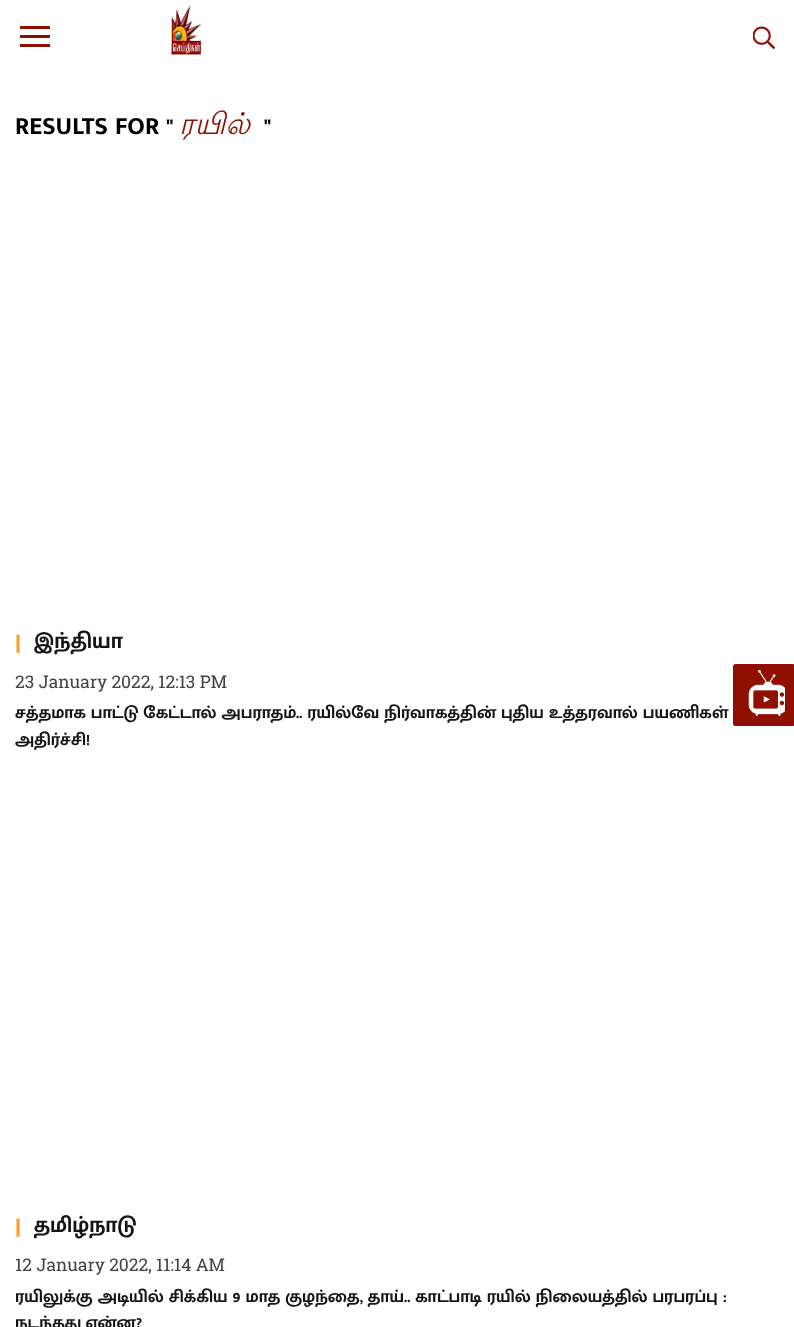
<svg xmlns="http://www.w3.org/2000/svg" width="794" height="1327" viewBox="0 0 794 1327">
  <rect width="100%" height="100%" fill="rgb(255,255,255)"/>
  <rect x="20" y="26" width="30" height="3" fill="rgb(143,15,1)"/>
  <rect x="20" y="35" width="30" height="3" fill="rgb(143,15,1)"/>
  <rect x="20" y="44" width="30" height="3" fill="rgb(143,15,1)"/>
  <image x="171" y="5" width="30" height="50" href="pic1.png"/>
  <image x="753" y="26" width="22" height="23" href="pic2.png"/>
  <text x="15" y="134" font-family="Mukta Malar" font-size="25" font-weight="bold" fill="rgb(0,0,0)">RESULTS FOR "</text>
  <text x="179" y="134" font-family="Lohit Tamil" font-size="30" font-style="italic" fill="rgb(143,15,1)">ரயில்</text>
  <text x="264" y="134" font-family="Mukta Malar" font-size="25" font-weight="bold" fill="rgb(0,0,0)">"</text>
  <text x="15" y="650" font-family="Mukta Malar" font-size="25" font-weight="bold" fill="rgb(250,160,47)">|</text>
  <text x="34" y="648" font-family="Mukta Malar" font-size="22.5" font-weight="bold" fill="rgb(20,20,20)">இந்தியா</text>
  <text x="15" y="688" font-family="Roboto Slab" font-size="17.5" fill="rgb(67,67,67)">23 January 2022, 12:13 PM</text>
  <g font-family="Mukta Malar" font-size="17.5" font-weight="bold" fill="rgb(20,20,20)">
    <text>
      <tspan x="15" y="718">சத்தமாக பாட்டு கேட்டால் அபராதம்.. ரயில்வே நிர்வாகத்தின் புதிய உத்தரவால் பயணிகள்</tspan>
      <tspan x="15" y="745">அதிர்ச்சி!</tspan>
    </text>
  </g>
  <text x="15" y="1234" font-family="Mukta Malar" font-size="25" font-weight="bold" fill="rgb(250,160,47)">|</text>
  <text x="34" y="1232" font-family="Mukta Malar" font-size="22.5" font-weight="bold" fill="rgb(20,20,20)">தமிழ்நாடு</text>
  <text x="15" y="1271" font-family="Roboto Slab" font-size="17.5" fill="rgb(67,67,67)">12 January 2022, 11:14 AM</text>
  <g font-family="Mukta Malar" font-size="17.5" font-weight="bold" fill="rgb(20,20,20)">
    <text>
      <tspan x="15" y="1302">ரயிலுக்கு அடியில் சிக்கிய 9 மாத குழந்தை, தாய்.. காட்பாடி ரயில் நிலையத்தில் பரபரப்பு :</tspan>
      <tspan x="15" y="1328" word-spacing="-1">நடந்தது என்ன?</tspan>
    </text>
  </g>
  <rect x="733" y="664" width="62" height="62" rx="2.5" fill="rgb(143,15,1)"/>
  <image x="748" y="670" width="37" height="47" href="pic3.png"/>
</svg>
